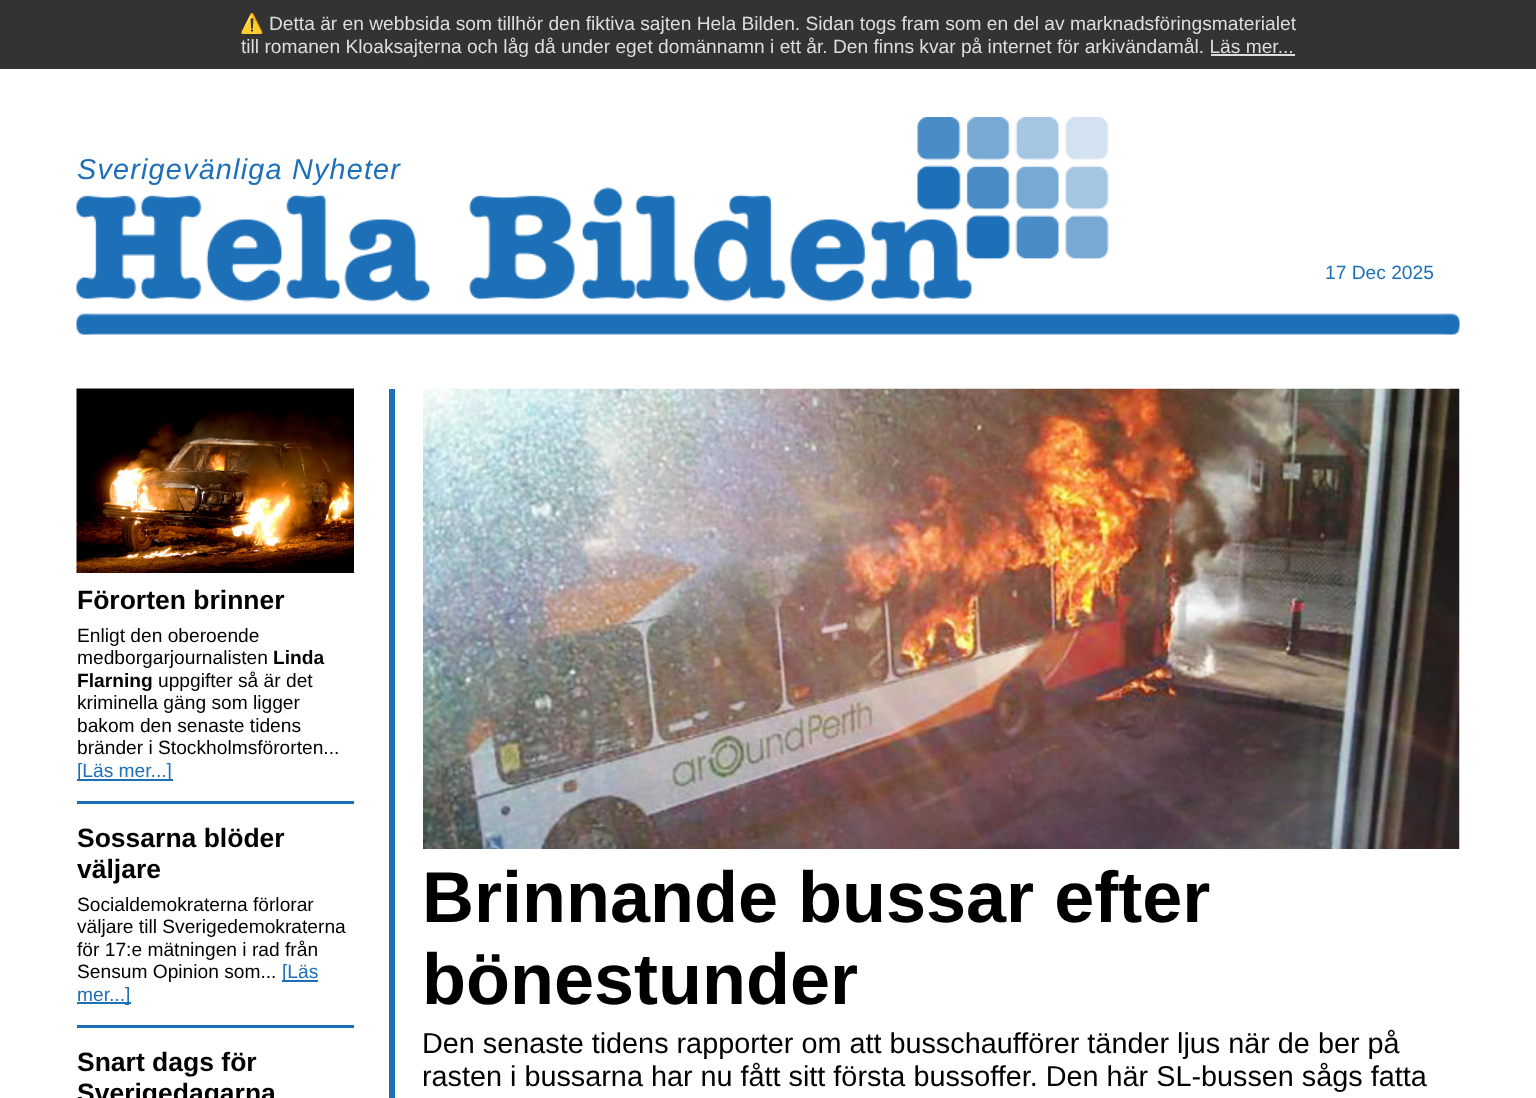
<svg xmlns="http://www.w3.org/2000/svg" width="1536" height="1098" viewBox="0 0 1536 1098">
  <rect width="100%" height="100%" fill="rgb(255,255,255)"/>
  <rect x="0" y="0" width="1536" height="69" fill="rgb(51,51,51)"/>
  <text x="240" y="30" font-family="Noto Color Emoji" font-size="19.2" fill="rgb(221,221,221)">⚠️</text>
  <g font-family="Liberation Sans" font-size="19.2" fill="rgb(221,221,221)">
    <text x="269" y="30">Detta är en webbsida som tillhör den fiktiva sajten Hela Bilden. Sidan togs fram som en del av marknadsföringsmaterialet</text>
    <text x="241" y="53">till romanen Kloaksajterna och låg då under eget domännamn i ett år. Den finns kvar på internet för arkivändamål. Läs mer...</text>
  </g>
  <rect x="1211" y="54" width="84" height="2" fill="rgb(221,221,221)"/>
  <image x="76" y="117" width="1384" height="218" href="pic1.png"/>
  <text x="77" y="179" font-family="Liberation Sans" font-size="28.8" font-style="italic" letter-spacing="1.2" fill="rgb(29,112,184)">Sverigevänliga Nyheter</text>
  <text x="1325" y="279" font-family="Liberation Sans" font-size="19.2" fill="rgb(29,112,184)">17 Dec 2025</text>
  <rect x="77" y="801" width="277" height="3" fill="rgb(29,112,184)"/>
  <image x="76" y="388" width="278" height="185" href="pic2.png"/>
  <text x="77" y="609" font-family="Liberation Sans" font-size="26.5" font-weight="bold" fill="rgb(0,0,0)">Förorten brinner</text>
  <g font-family="Liberation Sans" font-size="19.2" fill="rgb(0,0,0)">
    <text>
      <tspan x="77" y="642">Enligt den oberoende</tspan>
      <tspan x="77" y="664">medborgarjournalisten</tspan>
    </text>
  </g>
  <g font-family="Liberation Sans" font-size="19.2" font-weight="bold" fill="rgb(0,0,0)">
    <text x="273" y="664">Linda</text>
    <text x="77" y="687">Flarning</text>
  </g>
  <g font-family="Liberation Sans" font-size="19.2" fill="rgb(0,0,0)">
    <text x="158" y="687">uppgifter så är det</text>
    <text>
      <tspan x="77" y="709">kriminella gäng som ligger</tspan>
      <tspan x="77" y="732">bakom den senaste tidens</tspan>
      <tspan x="77" y="754">bränder i Stockholmsförorten...</tspan>
    </text>
  </g>
  <rect x="77" y="779" width="96" height="2" fill="rgb(29,112,184)"/>
  <text x="77" y="777" font-family="Liberation Sans" font-size="19.2" fill="rgb(29,112,184)">[Läs mer...]</text>
  <rect x="77" y="1025" width="277" height="3" fill="rgb(29,112,184)"/>
  <g font-family="Liberation Sans" font-size="26.5" font-weight="bold" fill="rgb(0,0,0)">
    <text>
      <tspan x="77" y="847">Sossarna blöder</tspan>
      <tspan x="77" y="878">väljare</tspan>
    </text>
  </g>
  <g font-family="Liberation Sans" font-size="19.2" fill="rgb(0,0,0)">
    <text>
      <tspan x="77" y="911">Socialdemokraterna förlorar</tspan>
      <tspan x="77" y="933">väljare till Sverigedemokraterna</tspan>
      <tspan x="77" y="956">för 17:e mätningen i rad från</tspan>
      <tspan x="77" y="978">Sensum Opinion som...</tspan>
    </text>
  </g>
  <rect x="282" y="980" width="36" height="2" fill="rgb(29,112,184)"/>
  <text x="282" y="978" font-family="Liberation Sans" font-size="19.2" fill="rgb(29,112,184)">[Läs</text>
  <rect x="77" y="1002" width="54" height="2" fill="rgb(29,112,184)"/>
  <text x="77" y="1001" font-family="Liberation Sans" font-size="19.2" fill="rgb(29,112,184)">mer...]</text>
  <g font-family="Liberation Sans" font-size="26.5" font-weight="bold" fill="rgb(0,0,0)">
    <text>
      <tspan x="77" y="1071">Snart dags för</tspan>
      <tspan x="77" y="1102">Sverigedagarna</tspan>
    </text>
  </g>
  <rect x="389" y="389" width="6" height="709" fill="rgb(29,112,184)"/>
  <image x="423" y="388" width="1037" height="461" href="pic3.png"/>
  <g font-family="Liberation Sans" font-size="72" font-weight="bold" fill="rgb(0,0,0)">
    <text>
      <tspan x="422" y="922">Brinnande bussar efter</tspan>
      <tspan x="422" y="1004">bönestunder</tspan>
    </text>
  </g>
  <g font-family="Liberation Sans" font-size="28.8" fill="rgb(0,0,0)">
    <text>
      <tspan x="422" y="1053">Den senaste tidens rapporter om att busschaufförer tänder ljus när de ber på</tspan>
      <tspan x="422" y="1086">rasten i bussarna har nu fått sitt första bussoffer. Den här SL-bussen sågs fatta</tspan>
    </text>
  </g>
</svg>
